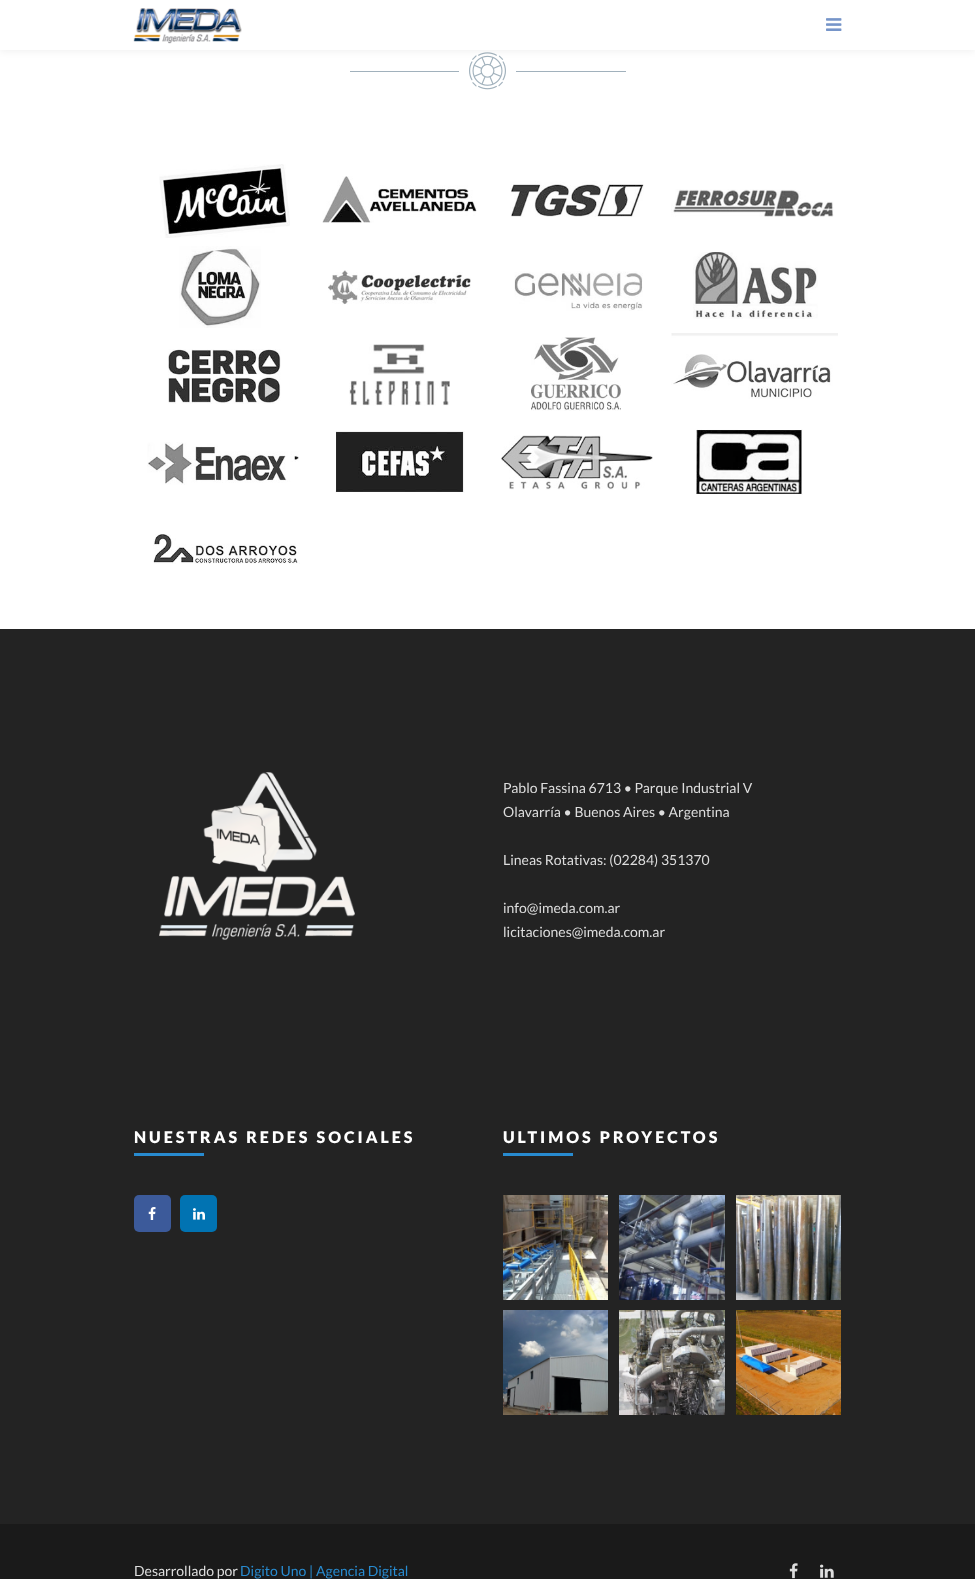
<svg xmlns="http://www.w3.org/2000/svg" width="975" height="1579" viewBox="0 0 975 1579">
  <rect width="100%" height="100%" fill="rgb(255,255,255)"/>
  <image x="469" y="52" width="37" height="38" href="pic3.png"/>
  <rect x="0" y="2" width="975" height="50" fill="rgba(0,0,0,0.05)" filter="blur(3px)"/>
  <rect x="0" y="0" width="975" height="50" fill="rgb(255,255,255)"/>
  <image x="133" y="8" width="109" height="36" href="pic1.png"/>
  <image x="826" y="18" width="16" height="13" href="pic2.png"/>
  <rect x="350" y="71" width="109" height="1" fill="rgb(161,177,188)"/>
  <rect x="516" y="71" width="110" height="1" fill="rgb(161,177,188)"/>
  <image x="159" y="164" width="131" height="74" href="pic4.png"/>
  <image x="322" y="176" width="155" height="47" href="pic5.png"/>
  <image x="510" y="181" width="134" height="36" href="pic6.png"/>
  <image x="671" y="189" width="163" height="28" href="pic7.png"/>
  <image x="179" y="246" width="82" height="82" href="pic8.png"/>
  <image x="328" y="270" width="143" height="35" href="pic9.png"/>
  <image x="514" y="271" width="129" height="40" href="pic10.png"/>
  <image x="693" y="252" width="125" height="67" href="pic11.png"/>
  <image x="168" y="349" width="113" height="55" href="pic12.png"/>
  <image x="349" y="344" width="101" height="62" href="pic13.png"/>
  <image x="531" y="337" width="90" height="74" href="pic14.png"/>
  <image x="671" y="333" width="167" height="66" href="pic15.png"/>
  <image x="147" y="442" width="152" height="43" href="pic16.png"/>
  <image x="335" y="431" width="130" height="62" href="pic17.png"/>
  <image x="501" y="435" width="152" height="55" href="pic18.png"/>
  <image x="696" y="429" width="107" height="66" href="pic19.png"/>
  <image x="153" y="534" width="147" height="30" href="pic20.png"/>
  <rect x="0" y="629" width="975" height="895" fill="rgb(35,35,35)"/>
  <image x="159" y="772" width="196" height="168" href="pic21.png"/>
  <g font-family="Lato" font-size="14" fill="rgb(221,221,221)">
    <text>
      <tspan x="503" y="793">Pablo Fassina 6713 • Parque Industrial V</tspan>
      <tspan x="503" y="817">Olavarría • Buenos Aires • Argentina</tspan>
    </text>
    <text x="503" y="865">Lineas Rotativas: (02284) 351370</text>
    <text>
      <tspan x="503" y="913">info@imeda.com.ar</tspan>
      <tspan x="503" y="937">licitaciones@imeda.com.ar</tspan>
    </text>
  </g>
  <text x="134" y="1143" font-family="Lato" font-size="16" font-weight="900" letter-spacing="3" fill="rgb(255,255,255)">NUESTRAS REDES SOCIALES</text>
  <rect x="134" y="1153" width="70" height="3" fill="rgb(40,139,208)"/>
  <rect x="134" y="1195" width="37" height="37" rx="5" fill="rgb(60,90,154)"/>
  <image x="148" y="1207" width="8" height="13" href="pic22.png"/>
  <rect x="180" y="1195" width="37" height="37" rx="5" fill="rgb(1,115,178)"/>
  <image x="193" y="1208" width="12" height="12" href="pic23.png"/>
  <text x="503" y="1143" font-family="Lato" font-size="16" font-weight="900" letter-spacing="3" fill="rgb(255,255,255)">ULTIMOS PROYECTOS</text>
  <rect x="503" y="1153" width="70" height="3" fill="rgb(40,139,208)"/>
  <image x="503" y="1195" width="105" height="105" href="pic24.png"/>
  <text x="545" y="1260" font-family="Lato" font-size="34" fill="rgb(71,88,109)">+</text>
  <image x="619" y="1195" width="106" height="105" href="pic25.png"/>
  <text x="662" y="1260" font-family="Lato" font-size="34" fill="rgb(105,115,131)">+</text>
  <image x="736" y="1195" width="105" height="105" href="pic26.png"/>
  <image x="503" y="1310" width="105" height="105" href="pic27.png"/>
  <image x="619" y="1310" width="106" height="105" href="pic28.png"/>
  <text x="662" y="1375" font-family="Lato" font-size="34" fill="rgb(132,129,125)">+</text>
  <image x="736" y="1310" width="105" height="105" href="pic29.png"/>
  <text x="779" y="1375" font-family="Lato" font-size="34" fill="rgb(211,176,133)">+</text>
  <rect x="0" y="1524" width="975" height="55" fill="rgb(26,26,26)"/>
  <text x="134" y="1576" font-family="Lato" font-size="14" fill="rgb(221,221,221)">Desarrollado por</text>
  <text x="240" y="1576" font-family="Lato" font-size="14" fill="rgb(40,139,208)">Digito Uno | Agencia Digital</text>
  <image x="789" y="1563" width="9" height="16" href="pic30.png"/>
  <image x="820" y="1564" width="14" height="14" href="pic31.png"/>
</svg>
